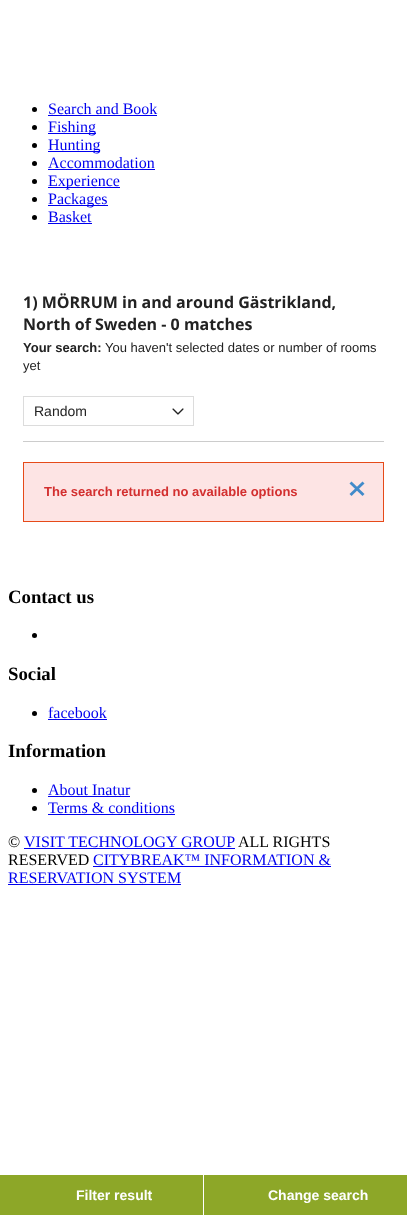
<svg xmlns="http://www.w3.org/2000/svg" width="407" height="1215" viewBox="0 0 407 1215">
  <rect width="100%" height="100%" fill="rgb(255,255,255)"/>
  <circle cx="34.5" cy="109.5" r="2.5" fill="rgb(0,0,0)"/>
  <text x="48" y="114" font-family="Liberation Serif" font-size="16" fill="rgb(0,0,238)">Search and Book</text>
  <rect x="48" y="115" width="109" height="1" fill="rgb(0,0,238)"/>
  <circle cx="34.5" cy="127.5" r="2.5" fill="rgb(0,0,0)"/>
  <rect x="48" y="133" width="48" height="1" fill="rgb(0,0,238)"/>
  <text x="48" y="132" font-family="Liberation Serif" font-size="16" fill="rgb(0,0,238)">Fishing</text>
  <circle cx="34.5" cy="145.5" r="2.5" fill="rgb(0,0,0)"/>
  <rect x="48" y="151" width="52" height="1" fill="rgb(0,0,238)"/>
  <text x="48" y="150" font-family="Liberation Serif" font-size="16" fill="rgb(0,0,238)">Hunting</text>
  <circle cx="34.5" cy="163.5" r="2.5" fill="rgb(0,0,0)"/>
  <text x="48" y="168" font-family="Liberation Serif" font-size="16" fill="rgb(0,0,238)">Accommodation</text>
  <rect x="48" y="169" width="107" height="1" fill="rgb(0,0,238)"/>
  <circle cx="34.5" cy="181.5" r="2.5" fill="rgb(0,0,0)"/>
  <rect x="48" y="187" width="72" height="1" fill="rgb(0,0,238)"/>
  <text x="48" y="186" font-family="Liberation Serif" font-size="16" fill="rgb(0,0,238)">Experience</text>
  <circle cx="34.5" cy="199.5" r="2.5" fill="rgb(0,0,0)"/>
  <rect x="48" y="205" width="60" height="1" fill="rgb(0,0,238)"/>
  <text x="48" y="204" font-family="Liberation Serif" font-size="16" fill="rgb(0,0,238)">Packages</text>
  <circle cx="34.5" cy="217.5" r="2.5" fill="rgb(0,0,0)"/>
  <text x="48" y="222" font-family="Liberation Serif" font-size="16" fill="rgb(0,0,238)">Basket</text>
  <rect x="48" y="223" width="44" height="1" fill="rgb(0,0,238)"/>
  <g font-family="Open Sans" font-size="16" font-weight="bold" fill="rgb(34,34,34)">
    <text>
      <tspan x="23" y="308">1) MÖRRUM in and around Gästrikland,</tspan>
      <tspan x="23" y="330">North of Sweden - 0 matches</tspan>
    </text>
  </g>
  <text x="23" y="352" font-family="Liberation Sans" font-size="13" font-weight="bold" fill="rgb(34,34,34)">Your search:</text>
  <g font-family="Liberation Sans" font-size="13" fill="rgb(34,34,34)">
    <text x="105" y="352">You haven't selected dates or number of rooms</text>
    <text x="23" y="370">yet</text>
  </g>
  <rect x="23" y="441" width="361" height="1" fill="rgb(204,204,204)"/>
  <image x="172" y="408" width="12" height="7" href="pic1.png"/>
  <rect x="23.5" y="396.5" width="170" height="29" fill="none" stroke="rgb(220,220,220)"/>
  <text x="34" y="416" font-family="Liberation Sans" font-size="14" fill="rgb(34,34,34)">Random</text>
  <rect x="23.5" y="462.5" width="360" height="59" fill="rgb(253,228,228)" stroke="rgb(230,74,25)"/>
  <text x="44" y="496" font-family="Liberation Sans" font-size="13" font-weight="bold" fill="rgb(211,47,47)">The search returned no available options</text>
  <path d="M351.5 481.5L364.5 494L362.5 496L349.5 483.5Z" fill="rgb(66,139,202)"/>
  <path d="M349.5 494L362.5 481.5L364.5 483.5L351.5 496Z" fill="rgb(66,139,202)"/>
  <rect x="0" y="1175" width="203" height="40" fill="rgb(141,167,40)"/>
  <text x="76" y="1200" font-family="Liberation Sans" font-size="14" font-weight="bold" fill="rgb(255,255,255)">Filter result</text>
  <rect x="204" y="1175" width="203" height="40" fill="rgb(141,167,40)"/>
  <text x="268" y="1200" font-family="Liberation Sans" font-size="14" font-weight="bold" fill="rgb(255,255,255)">Change search</text>
  <text x="8" y="603" font-family="Liberation Serif" font-size="18.75" font-weight="bold" fill="rgb(0,0,0)">Contact us</text>
  <circle cx="34.5" cy="635.5" r="2.5" fill="rgb(0,0,0)"/>
  <text x="8" y="680" font-family="Liberation Serif" font-size="18.75" font-weight="bold" fill="rgb(0,0,0)">Social</text>
  <circle cx="34.5" cy="713.5" r="2.5" fill="rgb(0,0,0)"/>
  <text x="48" y="718" font-family="Liberation Serif" font-size="16" fill="rgb(0,0,238)">facebook</text>
  <rect x="48" y="719" width="59" height="1" fill="rgb(0,0,238)"/>
  <text x="8" y="757" font-family="Liberation Serif" font-size="18.75" font-weight="bold" fill="rgb(0,0,0)">Information</text>
  <circle cx="34.5" cy="790.5" r="2.5" fill="rgb(0,0,0)"/>
  <text x="48" y="795" font-family="Liberation Serif" font-size="16" fill="rgb(0,0,238)">About Inatur</text>
  <rect x="48" y="796" width="82" height="1" fill="rgb(0,0,238)"/>
  <circle cx="34.5" cy="808.5" r="2.5" fill="rgb(0,0,0)"/>
  <text x="48" y="813" font-family="Liberation Serif" font-size="16" fill="rgb(0,0,238)">Terms &amp; conditions</text>
  <rect x="48" y="814" width="127" height="1" fill="rgb(0,0,238)"/>
  <text x="8" y="847" font-family="Liberation Serif" font-size="16" fill="rgb(0,0,0)">©</text>
  <text x="24" y="847" font-family="Liberation Serif" font-size="16" fill="rgb(0,0,238)">VISIT TECHNOLOGY GROUP</text>
  <rect x="24" y="848" width="211" height="1" fill="rgb(0,0,238)"/>
  <g font-family="Liberation Serif" font-size="16" fill="rgb(0,0,0)">
    <text x="238" y="847">ALL RIGHTS</text>
    <text x="8" y="865">RESERVED</text>
  </g>
  <text x="93" y="865" font-family="Liberation Serif" font-size="16" fill="rgb(0,0,238)">CITYBREAK™ INFORMATION &amp;</text>
  <rect x="93" y="866" width="238" height="1" fill="rgb(0,0,238)"/>
  <text x="8" y="883" font-family="Liberation Serif" font-size="16" fill="rgb(0,0,238)">RESERVATION SYSTEM</text>
  <rect x="8" y="884" width="173" height="1" fill="rgb(0,0,238)"/>
</svg>
